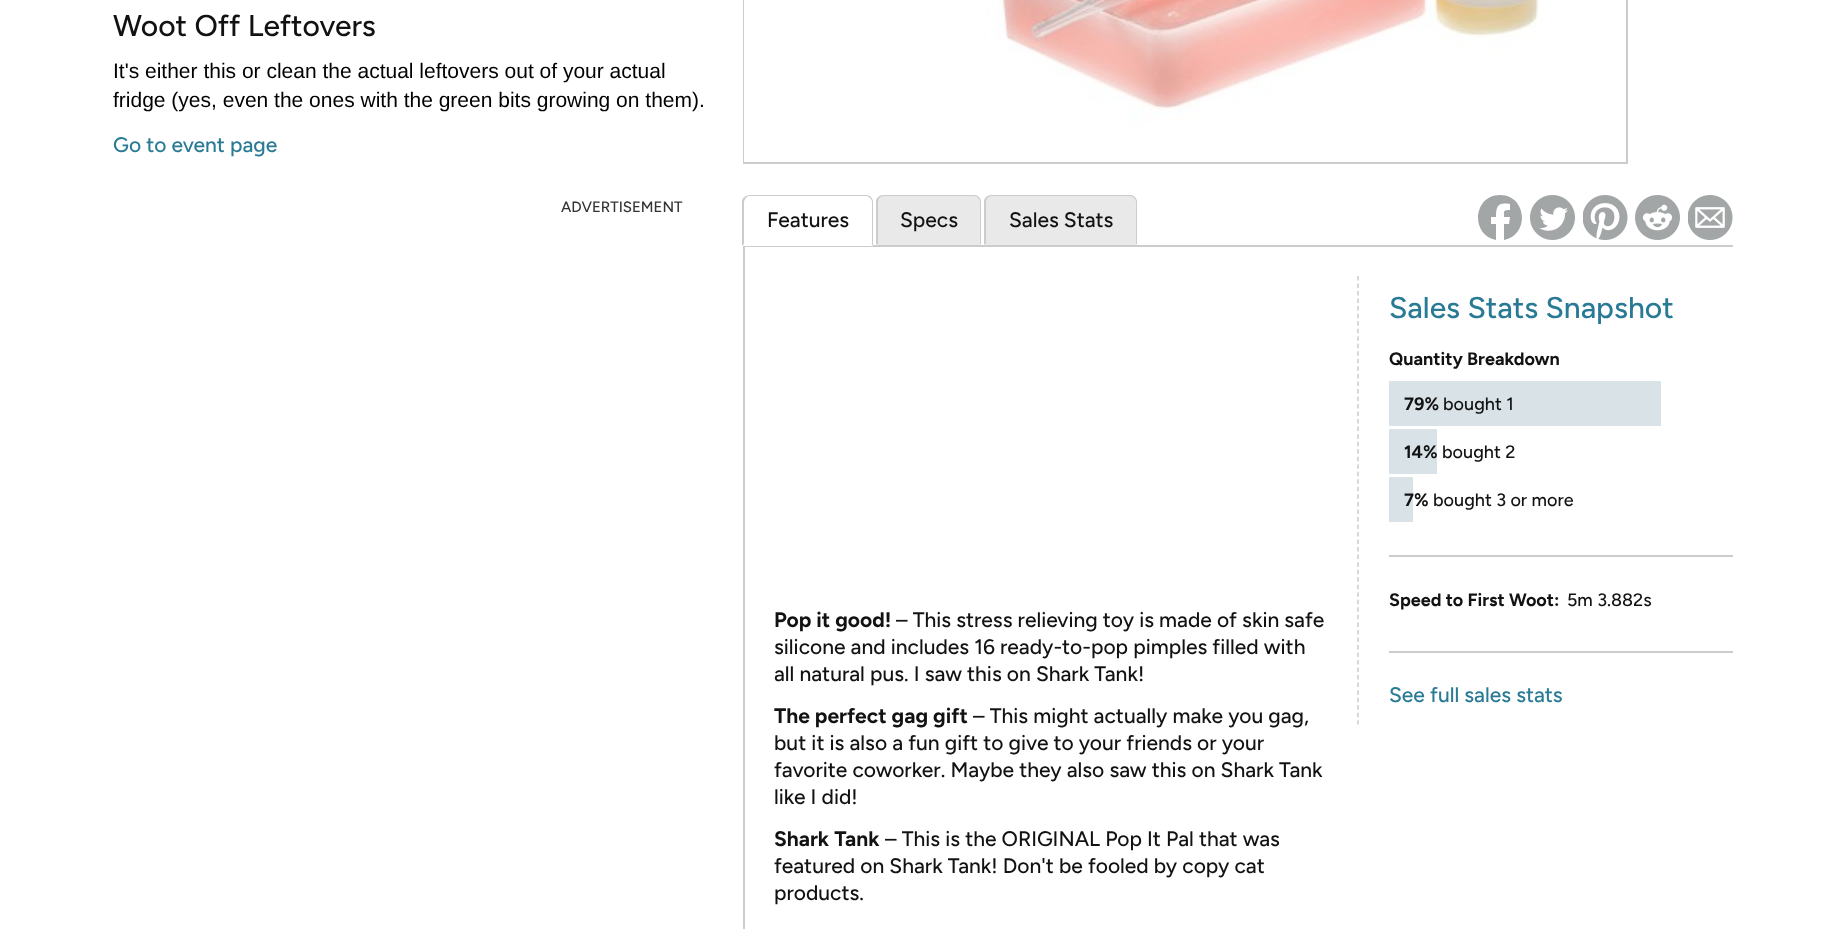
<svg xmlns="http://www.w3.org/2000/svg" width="1844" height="929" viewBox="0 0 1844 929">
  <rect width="100%" height="100%" fill="rgb(255,255,255)"/>
  <text x="113" y="36" font-family="Figtree" font-size="30" font-weight="500" fill="rgb(18,18,18)">Woot Off Leftovers</text>
  <g font-family="Liberation Sans" font-size="21" fill="rgb(0,0,0)">
    <text>
      <tspan x="113" y="78">It's either this or clean the actual leftovers out of your actual</tspan>
      <tspan x="113" y="107">fridge (yes, even the ones with the green bits growing on them).</tspan>
    </text>
  </g>
  <text x="113" y="152" font-family="Figtree" font-size="21" font-weight="500" fill="rgb(41,122,148)">Go to event page</text>
  <text x="561" y="212" font-family="Figtree" font-size="15" font-weight="500" fill="rgb(51,51,51)">ADVERTISEMENT</text>
  <rect x="744" y="-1" width="883" height="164" fill="none" stroke="rgb(204,204,204)" stroke-width="2"/>
  <image x="744" y="0" width="796" height="162" href="pic1.png"/>
  <path d="M1500 195C1473 195 1470 235 1496 240V224H1491V217H1496C1496 206 1498 202 1510 204V210C1503 210 1504 211 1504 217H1510L1509 224H1504V240C1530 235 1527 195 1500 195" fill="rgb(162,166,166)"/>
  <image x="1530" y="195" width="45" height="45" href="pic2.png"/>
  <image x="1583" y="195" width="45" height="45" href="pic3.png"/>
  <image x="1635" y="195" width="45" height="45" href="pic4.png"/>
  <image x="1688" y="195" width="45" height="45" href="pic5.png"/>
  <rect x="743" y="246" width="2" height="683" fill="rgb(204,204,204)"/>
  <rect x="743" y="245" width="990" height="2" fill="rgb(204,204,204)"/>
  <path d="M751 195H865C869.5 195 873 198.5 873 203V246H743V203C743 198.5 746.5 195 751 195Z" fill="rgb(255,255,255)"/>
  <path d="M750 195C748 195 746 196 744 197L746 198C747 197 748 196 749 196H867L870 198L871 197C870 196 868 195 866 195Z" fill="rgb(204,204,204)"/>
  <path d="M873 246V202C873 200 872 198 871 197L870 198C871 199 872 200 872 202V244H871Z" fill="rgb(204,204,204)"/>
  <path d="M873 246L871 244H744L742 246Z" fill="rgb(255,255,255)"/>
  <path d="M742 246V200L744 197L746 198C745 199 744 201 744 202V244Z" fill="rgb(204,204,204)"/>
  <text x="767" y="227" font-family="Figtree" font-size="21" font-weight="500" fill="rgb(18,18,18)">Features</text>
  <path d="M884 195H973C977.5 195 981 198.5 981 203V245H876V203C876 198.5 879.5 195 884 195Z" fill="rgb(233,233,233)"/>
  <path d="M884 195H974C978 195 981 198 981 202V244H876V202C876 198 879 195 884 195ZM884 196H974C977 196 980 199 980 202V244H878V202C878 199 880 196 884 196Z" fill="rgb(204,204,204)" fill-rule="evenodd"/>
  <text x="900" y="227" font-family="Figtree" font-size="21" font-weight="500" fill="rgb(18,18,18)">Specs</text>
  <path d="M992 195H1129C1133.5 195 1137 198.5 1137 203V245H984V203C984 198.5 987.5 195 992 195Z" fill="rgb(233,233,233)"/>
  <path d="M992 195H1130C1134 195 1137 198 1137 202V244H984V202C984 198 987 195 992 195ZM992 196H1130C1133 196 1136 199 1136 202V244H986V202C986 199 988 196 992 196Z" fill="rgb(204,204,204)" fill-rule="evenodd"/>
  <text x="1009" y="227" font-family="Figtree" font-size="21" font-weight="500" fill="rgb(18,18,18)">Sales Stats</text>
  <path d="M1358 276V724.5" fill="none" stroke="rgb(204,204,204)" stroke-width="1.5" stroke-dasharray="4.5 3.03"/>
  <text x="1389" y="318" font-family="Figtree" font-size="30" font-weight="500" fill="rgb(41,122,148)">Sales Stats Snapshot</text>
  <rect x="1389" y="555" width="344" height="2" fill="rgb(204,204,204)"/>
  <text x="1389" y="365" font-family="Figtree" font-size="18" font-weight="bold" fill="rgb(18,18,18)">Quantity Breakdown</text>
  <rect x="1389" y="381" width="272" height="45" fill="rgb(217,227,231)"/>
  <text x="1404" y="410" font-family="Figtree" font-size="18" font-weight="bold" fill="rgb(18,18,18)">79%</text>
  <text x="1443" y="410" font-family="Figtree" font-size="18" font-weight="500" fill="rgb(18,18,18)">bought 1</text>
  <rect x="1389" y="429" width="48" height="45" fill="rgb(217,227,231)"/>
  <text x="1404" y="458" font-family="Figtree" font-size="18" font-weight="bold" fill="rgb(18,18,18)">14%</text>
  <text x="1442" y="458" font-family="Figtree" font-size="18" font-weight="500" fill="rgb(18,18,18)">bought 2</text>
  <rect x="1389" y="477" width="24" height="45" fill="rgb(217,227,231)"/>
  <text x="1404" y="506" font-family="Figtree" font-size="18" font-weight="bold" fill="rgb(18,18,18)">7%</text>
  <text x="1433" y="506" font-family="Figtree" font-size="18" font-weight="500" fill="rgb(18,18,18)">bought 3 or more</text>
  <rect x="1389" y="651" width="344" height="2" fill="rgb(204,204,204)"/>
  <text x="1389" y="606" font-family="Figtree" font-size="18" font-weight="bold" fill="rgb(18,18,18)">Speed to First Woot:</text>
  <text x="1567" y="606" font-family="Figtree" font-size="18" font-weight="500" fill="rgb(18,18,18)">5m 3.882s</text>
  <text x="1389" y="702" font-family="Figtree" font-size="21" font-weight="500" fill="rgb(41,122,148)">See full sales stats</text>
  <text x="774" y="627" font-family="Figtree" font-size="21" font-weight="bold" fill="rgb(18,18,18)">Pop it good!</text>
  <g font-family="Figtree" font-size="21" font-weight="500" fill="rgb(18,18,18)">
    <text x="896" y="627">– This stress relieving toy is made of skin safe</text>
    <text>
      <tspan x="774" y="654">silicone and includes 16 ready-to-pop pimples filled with</tspan>
      <tspan x="774" y="681">all natural pus. I saw this on Shark Tank!</tspan>
    </text>
  </g>
  <text x="774" y="723" font-family="Figtree" font-size="21" font-weight="bold" fill="rgb(18,18,18)">The perfect gag gift</text>
  <g font-family="Figtree" font-size="21" font-weight="500" fill="rgb(18,18,18)">
    <text x="973" y="723">– This might actually make you gag,</text>
    <text>
      <tspan x="774" y="750">but it is also a fun gift to give to your friends or your</tspan>
      <tspan x="774" y="777">favorite coworker. Maybe they also saw this on Shark Tank</tspan>
      <tspan x="774" y="804">like I did!</tspan>
    </text>
  </g>
  <text x="774" y="846" font-family="Figtree" font-size="21" font-weight="bold" fill="rgb(18,18,18)">Shark Tank</text>
  <g font-family="Figtree" font-size="21" font-weight="500" fill="rgb(18,18,18)">
    <text x="885" y="846">– This is the ORIGINAL Pop It Pal that was</text>
    <text>
      <tspan x="774" y="873">featured on Shark Tank! Don't be fooled by copy cat</tspan>
      <tspan x="774" y="900">products.</tspan>
    </text>
  </g>
</svg>
